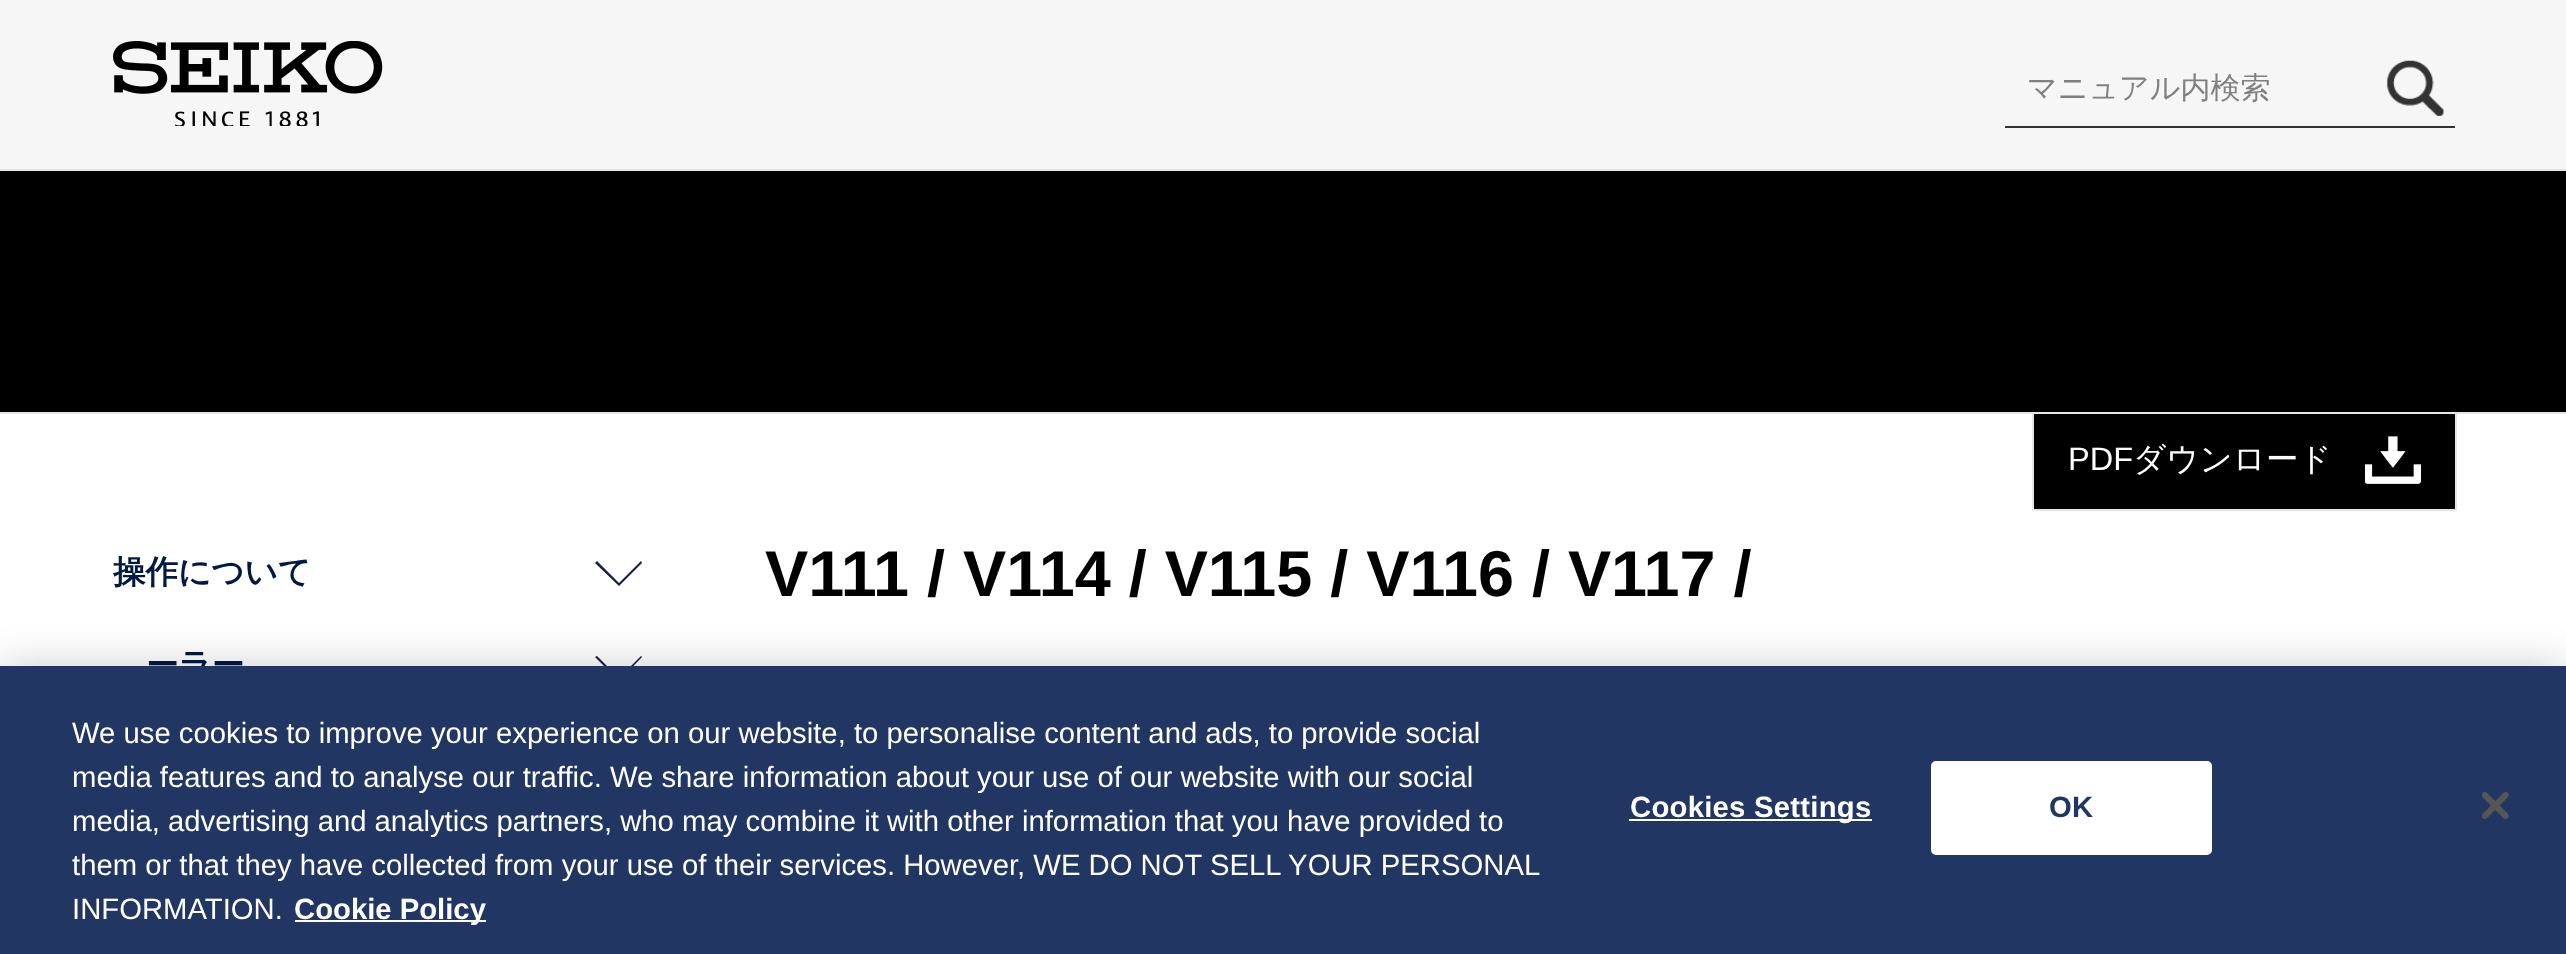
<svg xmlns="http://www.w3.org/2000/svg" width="2566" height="954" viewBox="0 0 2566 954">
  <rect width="100%" height="100%" fill="rgb(255,255,255)"/>
  <rect x="0" y="0" width="2566" height="169" fill="rgb(246,246,246)"/>
  <rect x="0" y="169" width="2566" height="2" fill="rgb(230,230,230)"/>
  <image x="113" y="41" width="270" height="85" href="pic1.png"/>
  <rect x="2005" y="126" width="450" height="2" fill="rgb(51,51,51)"/>
  <text x="2027" y="98" font-family="WenQuanYi Zen Hei" font-size="30" font-weight="500" fill="rgb(128,128,128)">マニュアル内検索</text>
  <image x="2387" y="60" width="57" height="56" href="pic2.png"/>
  <path d="M619 586L595 563L597 561L619 583L641 561L642 563Z" fill="rgb(20,34,69)"/>
  <text x="113" y="583" font-family="WenQuanYi Zen Hei" font-size="32.5" font-weight="bold" fill="rgb(0,26,67)">操作について</text>
  <path d="M619 681L595 657L597 656L619 678L641 656L642 657Z" fill="rgb(20,34,69)"/>
  <text x="146" y="676" font-family="WenQuanYi Zen Hei" font-size="32.5" font-weight="bold" fill="rgb(0,26,67)">ーラー</text>
  <rect x="0" y="171" width="2566" height="241" fill="rgb(0,0,0)"/>
  <rect x="0" y="412" width="2566" height="2" fill="rgb(230,230,230)"/>
  <rect x="2034" y="414" width="421" height="95" fill="rgb(0,0,0)"/>
  <image x="2365" y="436" width="56" height="48" href="pic3.png"/>
  <rect x="2455" y="414" width="2" height="97" fill="rgb(230,230,230)"/>
  <rect x="2032" y="509" width="425" height="2" fill="rgb(230,230,230)"/>
  <rect x="2032" y="414" width="2" height="97" fill="rgb(230,230,230)"/>
  <text x="2068" y="470" font-family="Liberation Sans" font-size="32.5" fill="rgb(255,255,255)">PDF</text>
  <text x="2133" y="470" font-family="WenQuanYi Zen Hei" font-size="32.5" font-weight="500" fill="rgb(255,255,255)">ダウンロード</text>
  <text x="765" y="596" font-family="Liberation Sans" font-size="64.75" font-weight="bold" fill="rgb(0,0,0)">V111 / V114 / V115 / V116 / V117 /</text>
  <rect x="0" y="666" width="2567" height="288" fill="rgba(0,0,0,0.2)" filter="blur(20px)"/>
  <rect x="0" y="666" width="2566" height="288" fill="rgb(33,54,98)"/>
  <g font-family="Liberation Sans" font-size="29.27" fill="rgb(255,255,255)">
    <text>
      <tspan x="72" y="743">We use cookies to improve your experience on our website, to personalise content and ads, to provide social</tspan>
      <tspan x="72" y="787">media features and to analyse our traffic. We share information about your use of our website with our social</tspan>
      <tspan x="72" y="831">media, advertising and analytics partners, who may combine it with other information that you have provided to</tspan>
      <tspan x="72" y="875">them or that they have collected from your use of their services. However, WE DO NOT SELL YOUR PERSONAL</tspan>
      <tspan x="72" y="919">INFORMATION.</tspan>
    </text>
  </g>
  <rect x="295" y="920" width="191" height="2" fill="rgb(255,255,255)"/>
  <text x="294" y="919" font-family="Liberation Sans" font-size="29.27" font-weight="bold" fill="rgb(255,255,255)">Cookie Policy</text>
  <rect x="1629" y="819" width="243" height="2" fill="rgb(255,255,255)"/>
  <text x="1630" y="817" font-family="Liberation Sans" font-size="29.27" font-weight="bold" letter-spacing="0.25" fill="rgb(255,255,255)">Cookies Settings</text>
  <rect x="1932" y="762" width="279" height="92" rx="4" fill="rgb(255,255,255)" stroke="rgb(255,255,255)" stroke-width="2"/>
  <text x="2049" y="817" font-family="Liberation Sans" font-size="29.27" font-weight="bold" letter-spacing="0.25" fill="rgb(33,54,98)">OK</text>
  <image x="2482" y="792" width="27" height="27" href="pic4.png"/>
</svg>
